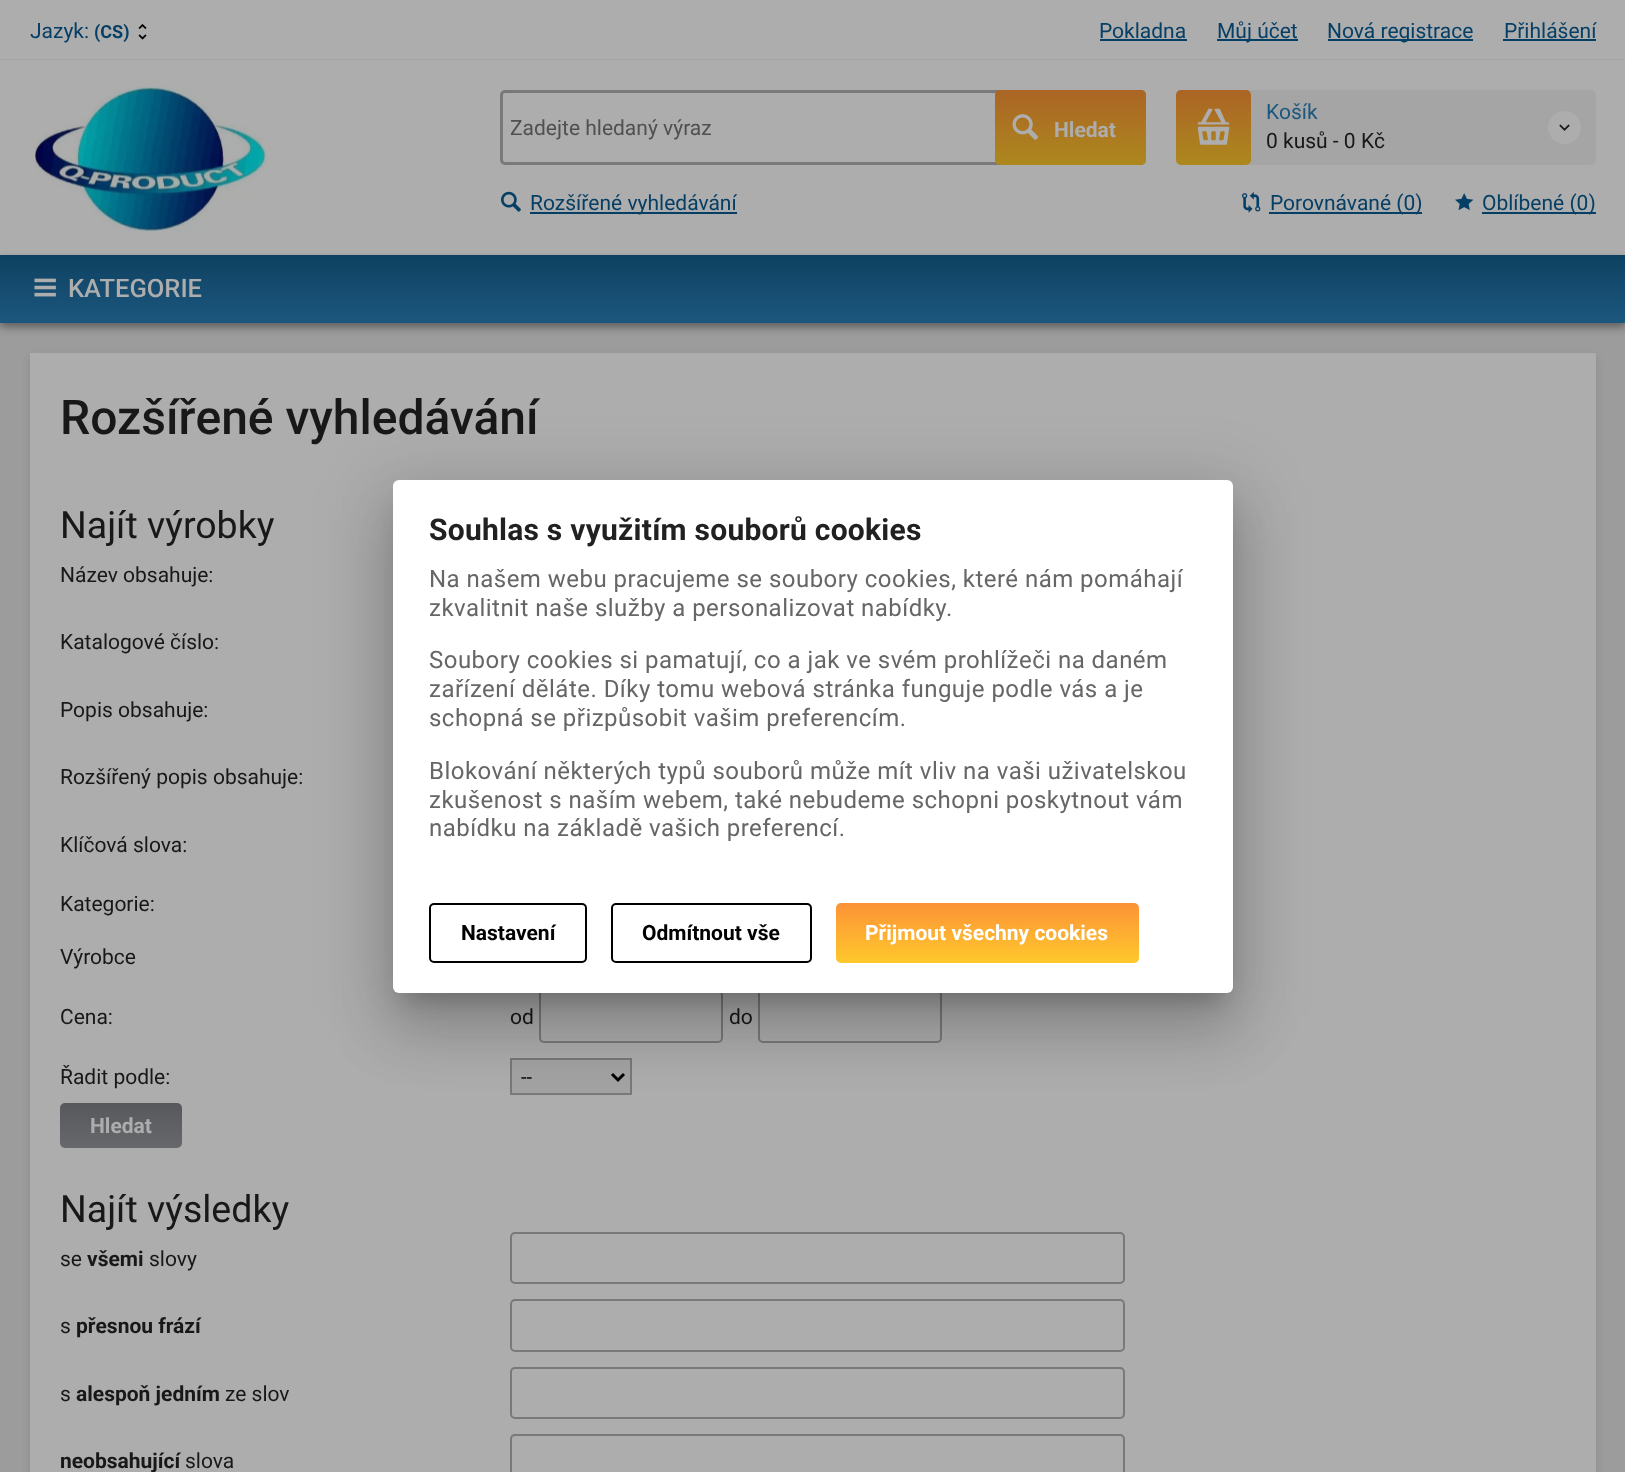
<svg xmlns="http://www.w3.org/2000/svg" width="1625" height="1472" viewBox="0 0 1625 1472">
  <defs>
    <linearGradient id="g1" gradientUnits="userSpaceOnUse" x1="1070" y1="165" x2="1070" y2="90"><stop offset="0" stop-color="rgb(173,136,30)"/><stop offset="1" stop-color="rgb(171,100,37)"/></linearGradient>
    <linearGradient id="g2" gradientUnits="userSpaceOnUse" x1="1214" y1="165" x2="1214" y2="90"><stop offset="0" stop-color="rgb(173,136,30)"/><stop offset="1" stop-color="rgb(171,100,37)"/></linearGradient>
    <linearGradient id="g3" gradientUnits="userSpaceOnUse" x1="813" y1="323" x2="813" y2="255"><stop offset="0" stop-color="rgb(28,87,126)"/><stop offset="1" stop-color="rgb(14,65,97)"/></linearGradient>
    <clipPath id="clip1"><path d="M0 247H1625V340H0ZM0 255H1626V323H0Z" clip-rule="evenodd"/></clipPath>
    <linearGradient id="g4" gradientUnits="userSpaceOnUse" x1="121" y1="1148" x2="121" y2="1103"><stop offset="0" stop-color="rgb(102,104,107)"/><stop offset="1" stop-color="rgb(86,88,91)"/></linearGradient>
    <linearGradient id="g5" gradientUnits="userSpaceOnUse" x1="987" y1="963" x2="987" y2="903"><stop offset="0" stop-color="rgb(255,200,44)"/><stop offset="1" stop-color="rgb(252,147,55)"/></linearGradient>
  </defs>
  <rect width="100%" height="100%" fill="rgb(156,156,156)"/>
  <rect x="0" y="0" width="1625" height="59" fill="rgb(173,173,173)"/>
  <rect x="0" y="59" width="1625" height="1" fill="rgb(165,165,165)"/>
  <text x="30" y="38" font-family="Roboto" font-size="21" fill="rgb(6,63,101)">Jazyk:</text>
  <text x="94" y="38" font-family="Roboto" font-size="18" font-weight="bold" fill="rgb(6,63,101)">(CS)</text>
  <image x="138" y="24" width="9" height="16" href="pic1.png"/>
  <text x="1099" y="38" font-family="Roboto" font-size="21" fill="rgb(6,63,101)">Pokladna</text>
  <rect x="1100" y="39" width="87" height="2" fill="rgb(6,63,101)"/>
  <rect x="1217" y="39" width="81" height="2" fill="rgb(6,63,101)"/>
  <text x="1217" y="38" font-family="Roboto" font-size="21" fill="rgb(6,63,101)">Můj účet</text>
  <rect x="1328" y="39" width="145" height="2" fill="rgb(6,63,101)"/>
  <g font-family="Roboto" font-size="21" fill="rgb(6,63,101)">
    <text x="1327" y="38">Nová registrace</text>
    <text x="1504" y="38">Přihlášení</text>
  </g>
  <rect x="1503" y="39" width="93" height="2" fill="rgb(6,63,101)"/>
  <rect x="0" y="60" width="1625" height="195" fill="rgb(173,173,173)"/>
  <image x="35" y="86" width="232" height="146" href="pic2.png"/>
  <rect x="501.5" y="91.5" width="643" height="72" rx="3.5" fill="none" stroke="rgb(121,121,121)" stroke-width="3"/>
  <text x="510" y="135" font-family="Roboto" font-size="21" fill="rgb(80,80,80)">Zadejte hledaný výraz</text>
  <rect x="995" y="90" width="151" height="75" rx="5" fill="url(#g1)"/>
  <image x="1012" y="114" width="27" height="26" href="pic3.png"/>
  <text x="1054" y="137" font-family="Roboto" font-size="21" font-weight="bold" fill="rgb(173,173,173)">Hledat</text>
  <rect x="1176" y="90" width="420" height="75" rx="5" fill="rgb(165,165,165)"/>
  <rect x="1176" y="90" width="75" height="75" rx="5" fill="url(#g2)"/>
  <image x="1197" y="108" width="33" height="37" href="pic4.png"/>
  <text x="1266" y="119" font-family="Roboto" font-size="21" fill="rgb(28,87,126)">Košík</text>
  <text x="1266" y="148" font-family="Roboto" font-size="21" fill="rgb(24,24,24)">0 kusů - 0 Kč</text>
  <circle cx="1564.5" cy="127.5" r="16.5" fill="rgb(173,173,173)"/>
  <image x="1559" y="124" width="11" height="7" href="pic5.png"/>
  <image x="501" y="191" width="20" height="21" href="pic6.png"/>
  <rect x="530" y="212" width="207" height="2" fill="rgb(6,63,101)"/>
  <text x="530" y="210" font-family="Roboto" font-size="21" fill="rgb(6,63,101)">Rozšířené vyhledávání</text>
  <image x="1242" y="192" width="19" height="21" href="pic7.png"/>
  <rect x="1269" y="212" width="153" height="2" fill="rgb(6,63,101)"/>
  <text x="1270" y="210" font-family="Roboto" font-size="21" fill="rgb(6,63,101)">Porovnávané (0)</text>
  <image x="1455" y="193" width="19" height="18" href="pic8.png"/>
  <rect x="1482" y="212" width="114" height="2" fill="rgb(6,63,101)"/>
  <text x="1482" y="210" font-family="Roboto" font-size="21" fill="rgb(6,63,101)">Oblíbené (0)</text>
  <rect x="0" y="255" width="1625" height="68" fill="url(#g3)"/>
  <g clip-path="url(#clip1)">
    <rect x="0" y="260" width="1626" height="67" fill="rgba(0,0,0,0.4)" filter="blur(4px)"/>
  </g>
  <image x="34" y="278" width="22" height="19" href="pic9.png"/>
  <text x="68" y="297" font-family="Roboto" font-size="25.5" font-weight="500" fill="rgb(173,173,173)">KATEGORIE</text>
  <rect x="30" y="357" width="1566" height="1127" fill="rgba(0,0,0,0.1)" filter="blur(4px)"/>
  <rect x="30" y="353" width="1566" height="1119" fill="rgb(173,173,173)"/>
  <text x="60" y="434" font-family="Roboto" font-size="48" font-weight="500" fill="rgb(24,24,24)">Rozšířené vyhledávání</text>
  <text x="60" y="538" font-family="Roboto" font-size="37.5" fill="rgb(24,24,24)">Najít výrobky</text>
  <g font-family="Roboto" font-size="21" fill="rgb(24,24,24)">
    <text x="60" y="582">Název obsahuje:</text>
    <text x="60" y="649">Katalogové číslo:</text>
    <text x="60" y="717">Popis obsahuje:</text>
    <text x="60" y="784">Rozšířený popis obsahuje:</text>
    <text x="60" y="852">Klíčová slova:</text>
    <text x="60" y="911">Kategorie:</text>
    <text x="60" y="964">Výrobce</text>
    <text x="60" y="1024">Cena:</text>
    <text x="510" y="1024">od</text>
  </g>
  <rect x="540" y="991" width="182" height="51" rx="4" fill="none" stroke="rgb(121,121,121)" stroke-width="2"/>
  <text x="729" y="1024" font-family="Roboto" font-size="21" fill="rgb(24,24,24)">do</text>
  <rect x="759" y="991" width="182" height="51" rx="4" fill="none" stroke="rgb(121,121,121)" stroke-width="2"/>
  <text x="60" y="1084" font-family="Roboto" font-size="21" fill="rgb(24,24,24)">Řadit podle:</text>
  <rect x="511" y="1059" width="120" height="35" fill="rgb(163,163,163)" stroke="rgb(121,121,121)" stroke-width="2"/>
  <path d="M612 1074L618 1080L624 1074" fill="none" stroke="rgb(0,0,0)" stroke-width="3"/>
  <text x="521" y="1084" font-family="Roboto" font-size="20" fill="rgb(0,0,0)">--</text>
  <rect x="60" y="1103" width="122" height="45" rx="5" fill="url(#g4)"/>
  <text x="90" y="1133" font-family="Roboto" font-size="21" font-weight="bold" fill="rgb(173,173,173)">Hledat</text>
  <text x="60" y="1222" font-family="Roboto" font-size="37.5" fill="rgb(24,24,24)">Najít výsledky</text>
  <text x="60" y="1266" font-family="Roboto" font-size="21" fill="rgb(24,24,24)">se</text>
  <text x="87" y="1266" font-family="Roboto" font-size="21" font-weight="bold" fill="rgb(24,24,24)">všemi</text>
  <text x="149" y="1266" font-family="Roboto" font-size="21" fill="rgb(24,24,24)">slovy</text>
  <rect x="511" y="1233" width="613" height="50" rx="4" fill="none" stroke="rgb(121,121,121)" stroke-width="2"/>
  <text x="60" y="1333" font-family="Roboto" font-size="21" fill="rgb(24,24,24)">s</text>
  <text x="76" y="1333" font-family="Roboto" font-size="21" font-weight="bold" fill="rgb(24,24,24)">přesnou frází</text>
  <rect x="511" y="1300" width="613" height="51" rx="4" fill="none" stroke="rgb(121,121,121)" stroke-width="2"/>
  <text x="60" y="1401" font-family="Roboto" font-size="21" fill="rgb(24,24,24)">s</text>
  <text x="76" y="1401" font-family="Roboto" font-size="21" font-weight="bold" fill="rgb(24,24,24)">alespoň jedním</text>
  <text x="225" y="1401" font-family="Roboto" font-size="21" fill="rgb(24,24,24)">ze slov</text>
  <rect x="511" y="1368" width="613" height="50" rx="4" fill="none" stroke="rgb(121,121,121)" stroke-width="2"/>
  <text x="60" y="1468" font-family="Roboto" font-size="21" font-weight="bold" fill="rgb(24,24,24)">neobsahující</text>
  <text x="185" y="1468" font-family="Roboto" font-size="21" fill="rgb(24,24,24)">slova</text>
  <rect x="511" y="1435" width="613" height="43" rx="4" fill="none" stroke="rgb(121,121,121)" stroke-width="2"/>
  <rect x="381" y="482" width="864" height="537" rx="18" fill="rgba(0,0,0,0.12)" filter="blur(34.5px)"/>
  <rect x="389" y="512" width="849" height="522" rx="11" fill="rgba(0,0,0,0.14)" filter="blur(28.5px)"/>
  <rect x="404" y="507" width="819" height="492" fill="rgba(0,0,0,0.2)" filter="blur(11px)"/>
  <rect x="393" y="480" width="840" height="513" rx="6" fill="rgb(255,255,255)"/>
  <text x="429" y="540" font-family="Roboto" font-size="30" font-weight="bold" letter-spacing="0.25" fill="rgb(33,33,33)">Souhlas s využitím souborů cookies</text>
  <g font-family="Roboto" font-size="24" letter-spacing="0.47" fill="rgb(102,102,102)">
    <text>
      <tspan x="429" y="587">Na našem webu pracujeme se soubory cookies, které nám pomáhají</tspan>
      <tspan x="429" y="616">zkvalitnit naše služby a personalizovat nabídky.</tspan>
    </text>
    <text>
      <tspan x="429" y="668">Soubory cookies si pamatují, co a jak ve svém prohlížeči na daném</tspan>
      <tspan x="429" y="697">zařízení děláte. Díky tomu webová stránka funguje podle vás a je</tspan>
      <tspan x="429" y="726">schopná se přizpůsobit vašim preferencím.</tspan>
    </text>
    <text>
      <tspan x="429" y="779">Blokování některých typů souborů může mít vliv na vaši uživatelskou</tspan>
      <tspan x="429" y="808">zkušenost s naším webem, také nebudeme schopni poskytnout vám</tspan>
      <tspan x="429" y="836">nabídku na základě vašich preferencí.</tspan>
    </text>
  </g>
  <rect x="430" y="904" width="156" height="58" rx="4" fill="none" stroke="rgb(0,0,0)" stroke-width="2"/>
  <text x="461" y="940" font-family="Roboto" font-size="21" font-weight="bold" fill="rgb(0,0,0)">Nastavení</text>
  <rect x="612" y="904" width="199" height="58" rx="4" fill="none" stroke="rgb(0,0,0)" stroke-width="2"/>
  <text x="642" y="940" font-family="Roboto" font-size="21" font-weight="bold" fill="rgb(0,0,0)">Odmítnout vše</text>
  <rect x="836" y="903" width="303" height="60" rx="5" fill="url(#g5)"/>
  <text x="865" y="940" font-family="Roboto" font-size="21" font-weight="bold" fill="rgb(255,255,255)">Přijmout všechny cookies</text>
</svg>
